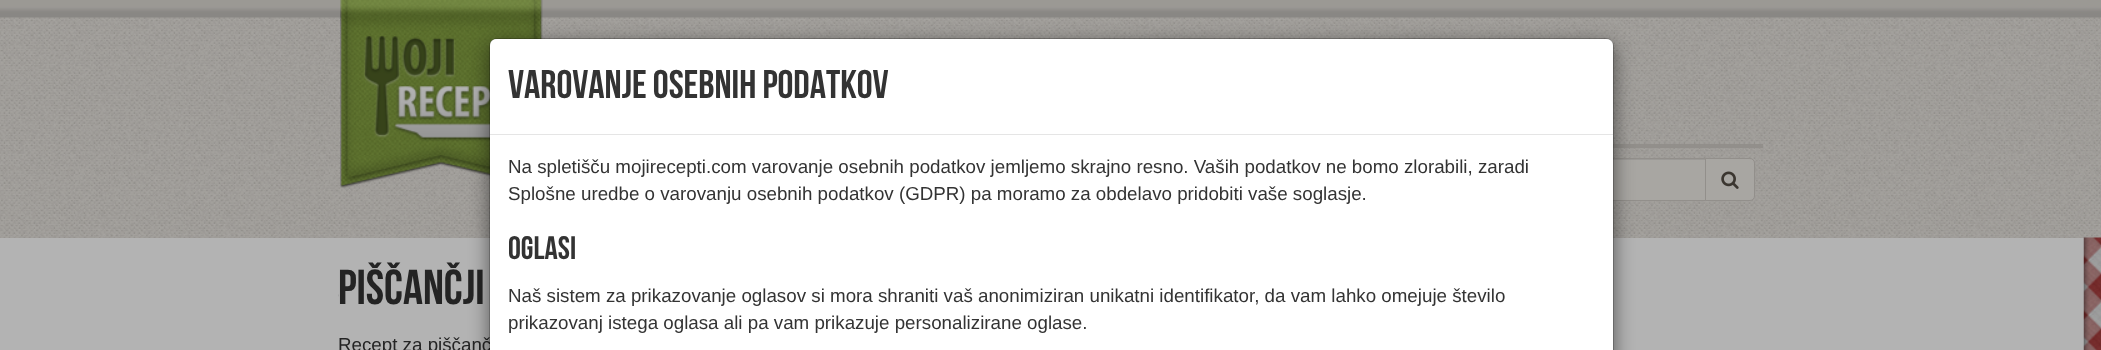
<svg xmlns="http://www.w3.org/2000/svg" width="2101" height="350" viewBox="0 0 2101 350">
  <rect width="100%" height="100%" fill="rgb(255,255,255)"/>
  <image x="0" y="17" width="2101" height="221" href="pic1.png"/>
  <image x="0" y="0" width="2101" height="18" href="pic2.png"/>
  <image x="340" y="0" width="203" height="188" href="pic3.png"/>
  <rect x="1613" y="144" width="150" height="4" fill="rgb(146,143,139)"/>
  <rect x="1613" y="160" width="92" height="40" fill="rgb(168,166,162)"/>
  <path d="M1392 160H1705V159H1393C1391 159 1389 161 1389 163V164C1389 162 1390 160 1392 160Z" fill="rgb(155,153,150)"/>
  <rect x="1388.5" y="158.5" width="317" height="42" fill="none" stroke="rgb(146,143,139)"/>
  <path d="M1705.5 158.5H1750C1752.5 158.5 1754.5 160.5 1754.5 163V196C1754.5 198.5 1752.5 200.5 1750 200.5H1705.5Z" fill="rgb(168,166,162)" stroke="rgb(146,143,139)"/>
  <image x="1721" y="171" width="18" height="18" href="pic4.png"/>
  <rect x="0" y="238" width="2084" height="112" fill="rgb(179,179,179)"/>
  <image x="2083" y="237" width="18" height="113" href="pic5.png"/>
  <image x="338" y="294" width="1" height="3" href="pic6.png"/>
  <text x="338" y="304" font-family="Bebas Neue" font-size="49" fill="rgb(36,36,36)">Piščančji</text>
  <text x="338" y="351" font-family="Liberation Sans" font-size="18.75" fill="rgb(36,36,36)">Recept za piščanč</text>
  <rect x="489" y="44" width="1125" height="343" rx="8" fill="rgba(0,0,0,0.5)" filter="blur(9.5px)"/>
  <path d="M496 39H1607C1610.5 39 1613 41.5 1613 45V350H490V45C490 41.5 492.5 39 496 39Z" fill="rgb(255,255,255)"/>
  <rect x="489.5" y="38.5" width="1124" height="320" rx="7.5" fill="none" stroke="rgba(0,0,0,0.2)"/>
  <rect x="490" y="134" width="1123" height="1" fill="rgb(229,229,229)"/>
  <text x="508" y="98" font-family="Bebas Neue" font-size="40" fill="rgb(51,51,51)">Varovanje osebnih podatkov</text>
  <g font-family="Liberation Sans" font-size="18.75" fill="rgb(51,51,51)">
    <text>
      <tspan x="508" y="173">Na spletišču mojirecepti.com varovanje osebnih podatkov jemljemo skrajno resno. Vaših podatkov ne bomo zlorabili, zaradi</tspan>
      <tspan x="508" y="200">Splošne uredbe o varovanju osebnih podatkov (GDPR) pa moramo za obdelavo pridobiti vaše soglasje.</tspan>
    </text>
  </g>
  <text x="508" y="259" font-family="Bebas Neue" font-size="32.5" fill="rgb(51,51,51)">Oglasi</text>
  <g font-family="Liberation Sans" font-size="18.75" fill="rgb(51,51,51)">
    <text>
      <tspan x="508" y="302">Naš sistem za prikazovanje oglasov si mora shraniti vaš anonimiziran unikatni identifikator, da vam lahko omejuje število</tspan>
      <tspan x="508" y="329">prikazovanj istega oglasa ali pa vam prikazuje personalizirane oglase.</tspan>
    </text>
  </g>
</svg>
